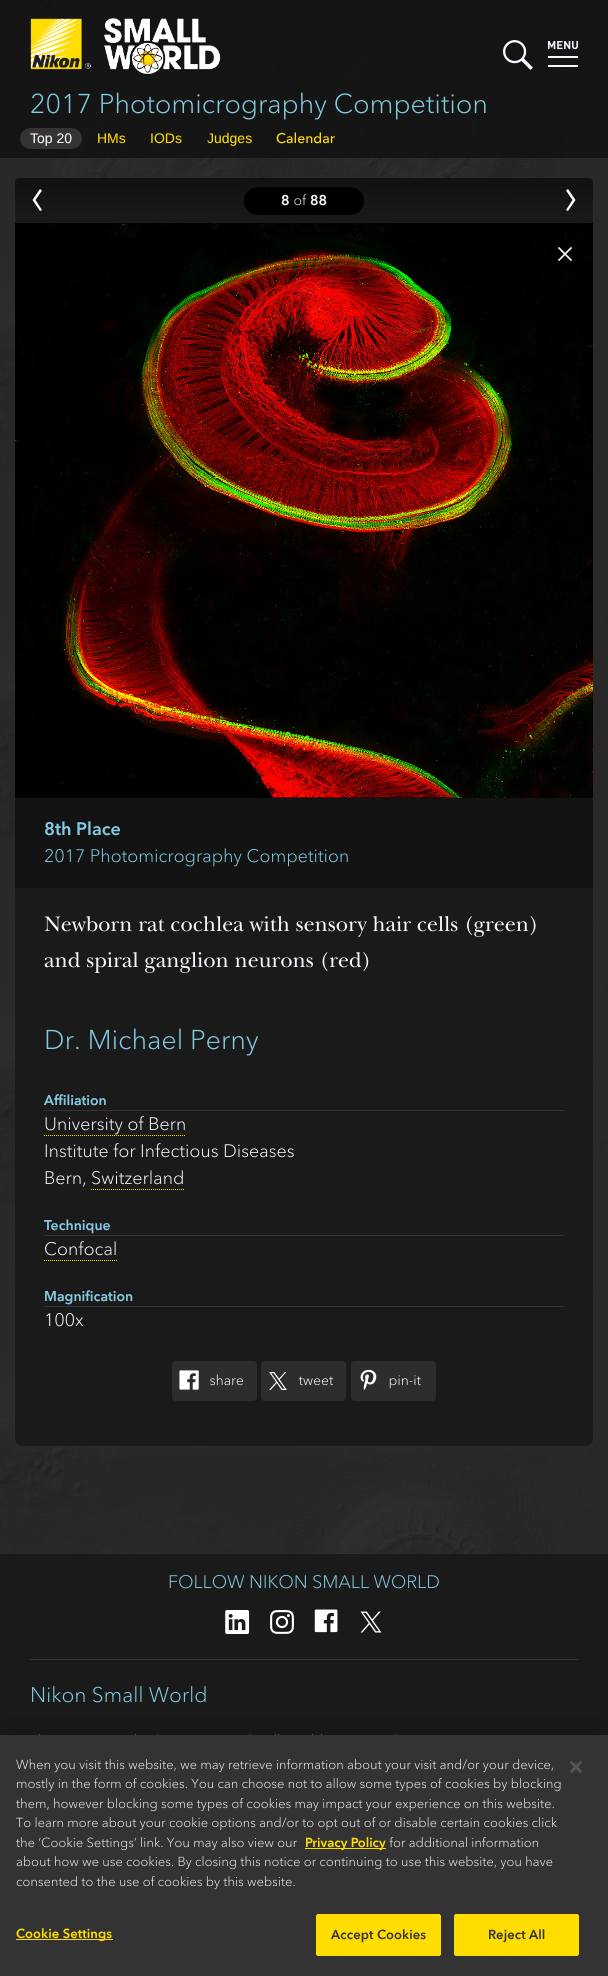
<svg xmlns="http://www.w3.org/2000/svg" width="608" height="1976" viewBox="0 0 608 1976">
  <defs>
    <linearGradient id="g1" gradientUnits="userSpaceOnUse" x1="304" y1="178" x2="304" y2="223"><stop offset="0" stop-color="rgb(17,17,17)"/><stop offset="1" stop-color="rgb(27,26,27)"/></linearGradient>
  </defs>
  <rect width="100%" height="100%" fill="rgb(255,255,255)"/>
  <image x="0" y="0" width="608" height="1554" href="pic1.png"/>
  <rect x="0" y="0" width="608" height="158" fill="rgba(16,16,16,0.8)"/>
  <image x="30" y="18" width="191" height="57" href="pic2.png"/>
  <image x="503" y="40" width="30" height="30" href="pic3.png"/>
  <image x="548" y="41" width="30" height="26" href="pic4.png"/>
  <image x="31" y="92" width="455" height="28" href="pic5.png"/>
  <rect x="20" y="128" width="62" height="21" rx="10.5" fill="rgb(54,51,52)"/>
  <text x="30" y="143" font-family="Liberation Sans" font-size="14" fill="rgb(247,247,255)">Top 20</text>
  <g font-family="Liberation Sans" font-size="14" fill="rgb(255,221,0)">
    <text x="97" y="143">HMs</text>
    <text x="150" y="143">IODs</text>
    <text x="207" y="143">Judges</text>
  </g>
  <text x="276" y="143" font-family="Avenir Next" font-size="14" font-weight="500" fill="rgb(255,221,0)">Calendar</text>
  <path d="M19 178H589C591 178 593 180 593 182V223H15V182C15 180 17 178 19 178Z" fill="url(#g1)"/>
  <path d="M42 210L40 211L32.5 200L40 189L42 190.5L35.5 200Z" fill="rgb(255,255,255)"/>
  <rect x="244" y="187" width="120" height="28" rx="14" fill="rgb(0,0,0)"/>
  <text x="281" y="205" font-family="Avenir Next" font-size="14" font-weight="bold" fill="rgb(247,247,255)">8</text>
  <image x="294" y="194" width="13" height="12" href="pic6.png"/>
  <text x="310" y="205" font-family="Avenir Next" font-size="14" font-weight="bold" fill="rgb(247,247,255)">88</text>
  <path d="M566 190.5L568 189L575.5 200L568 211L566 210L572.5 200Z" fill="rgb(255,255,255)"/>
  <path d="M15 223H593V1438C593 1442.5 589.5 1446 585 1446H23C18.5 1446 15 1442.5 15 1438Z" fill="rgb(27,26,27)"/>
  <image x="15" y="223" width="578" height="575" href="pic8.png"/>
  <circle cx="564" cy="254" r="15" fill="rgba(0,0,0,0.5)"/>
  <image x="558" y="247" width="14" height="15" href="pic7.png"/>
  <rect x="15" y="798" width="578" height="90" fill="rgb(19,19,19)"/>
  <text x="44" y="835" font-family="Avenir Next" font-size="18" font-weight="bold" fill="rgb(131,203,226)">8th Place</text>
  <image x="45" y="848" width="303" height="19" href="pic9.png"/>
  <image x="44" y="916" width="492" height="21" href="pic10.png"/>
  <image x="44" y="952" width="325" height="21" href="pic11.png"/>
  <image x="46" y="1028" width="212" height="28" href="pic12.png"/>
  <rect x="44" y="1110" width="520" height="1" fill="rgb(54,51,52)"/>
  <text x="44" y="1105" font-family="Avenir Next" font-size="14" font-weight="bold" fill="rgb(131,203,226)">Affiliation</text>
  <image x="45" y="1116" width="140" height="19" href="pic13.png"/>
  <path d="M44 1135.5H186" fill="none" stroke="rgb(255,221,0)" stroke-dasharray="1 1"/>
  <image x="45" y="1143" width="249" height="15" href="pic14.png"/>
  <image x="45" y="1171" width="41" height="16" href="pic15.png"/>
  <image x="92" y="1170" width="91" height="15" href="pic16.png"/>
  <path d="M91 1189.5H185" fill="none" stroke="rgb(255,221,0)" stroke-dasharray="1 1"/>
  <rect x="44" y="1235" width="520" height="1" fill="rgb(54,51,52)"/>
  <text x="44" y="1230" font-family="Avenir Next" font-size="14" font-weight="bold" fill="rgb(131,203,226)">Technique</text>
  <image x="45" y="1241" width="71" height="15" href="pic17.png"/>
  <path d="M44 1260.5H117" fill="none" stroke="rgb(255,221,0)" stroke-dasharray="1 1"/>
  <rect x="44" y="1306" width="520" height="1" fill="rgb(54,51,52)"/>
  <text x="44" y="1301" font-family="Avenir Next" font-size="14" font-weight="bold" fill="rgb(131,203,226)">Magnification</text>
  <image x="46" y="1313" width="38" height="14" href="pic18.png"/>
  <rect x="172" y="1361" width="85" height="40" rx="4" fill="rgb(46,44,45)"/>
  <image x="179" y="1370" width="20" height="20" href="pic19.png"/>
  <image x="210" y="1374" width="34" height="12" href="pic20.png"/>
  <rect x="261" y="1361" width="85" height="40" rx="4" fill="rgb(46,44,45)"/>
  <image x="269" y="1372" width="18" height="18" href="pic21.png"/>
  <image x="298" y="1376" width="36" height="10" href="pic22.png"/>
  <rect x="351" y="1361" width="85" height="40" rx="4" fill="rgb(46,44,45)"/>
  <image x="360" y="1369" width="17" height="22" href="pic23.png"/>
  <image x="389" y="1375" width="32" height="14" href="pic24.png"/>
  <rect x="0" y="1554" width="608" height="181" fill="rgb(27,26,27)"/>
  <image x="169" y="1574" width="270" height="15" href="pic25.png"/>
  <image x="225" y="1610" width="25" height="24" href="pic26.png"/>
  <image x="270" y="1610" width="24" height="24" href="pic27.png"/>
  <image x="314" y="1609" width="24" height="24" href="pic28.png"/>
  <image x="360" y="1611" width="22" height="22" href="pic29.png"/>
  <rect x="30" y="1659" width="548" height="1" fill="rgb(54,51,52)"/>
  <image x="32" y="1686" width="174" height="17" href="pic30.png"/>
  <image x="39" y="1734" width="120" height="1" href="pic31.png"/>
  <image x="249" y="1734" width="149" height="1" href="pic32.png"/>
  <rect x="0" y="1735" width="608" height="241" fill="rgba(0,0,0,0.2)" filter="blur(9px)"/>
  <rect x="0" y="1735" width="608" height="241" fill="rgb(51,51,51)"/>
  <image x="570" y="1761" width="12" height="12" href="pic33.png"/>
  <image x="16" y="1759" width="537" height="14" href="pic34.png"/>
  <image x="17" y="1778" width="544" height="14" href="pic35.png"/>
  <image x="16" y="1798" width="538" height="14" href="pic36.png"/>
  <image x="16" y="1817" width="541" height="14" href="pic37.png"/>
  <image x="16" y="1837" width="281" height="14" href="pic38.png"/>
  <rect x="305" y="1848" width="81" height="1" fill="rgb(255,221,0)"/>
  <text x="305" y="1847" font-family="Avenir Next" font-size="13" font-weight="bold" fill="rgb(255,221,0)">Privacy Policy</text>
  <image x="389" y="1837" width="149" height="11" href="pic39.png"/>
  <image x="16" y="1856" width="537" height="14" href="pic40.png"/>
  <image x="16" y="1876" width="279" height="14" href="pic41.png"/>
  <rect x="16" y="1939" width="97" height="1" fill="rgb(255,221,0)"/>
  <text x="16" y="1938" font-family="Avenir Next" font-size="13" font-weight="bold" letter-spacing="0.1" fill="rgb(255,221,0)">Cookie Settings</text>
  <rect x="316.5" y="1914.5" width="124" height="41" rx="1.5" fill="rgb(255,221,0)" stroke="rgb(255,221,0)"/>
  <text x="331" y="1939" font-family="Avenir Next" font-size="13" font-weight="bold" letter-spacing="0.1" fill="rgb(51,51,51)">Accept Cookies</text>
  <rect x="454.5" y="1914.5" width="124" height="41" rx="1.5" fill="rgb(255,221,0)" stroke="rgb(255,221,0)"/>
  <text x="488" y="1939" font-family="Avenir Next" font-size="13" font-weight="bold" letter-spacing="0.1" fill="rgb(51,51,51)">Reject All</text>
</svg>
